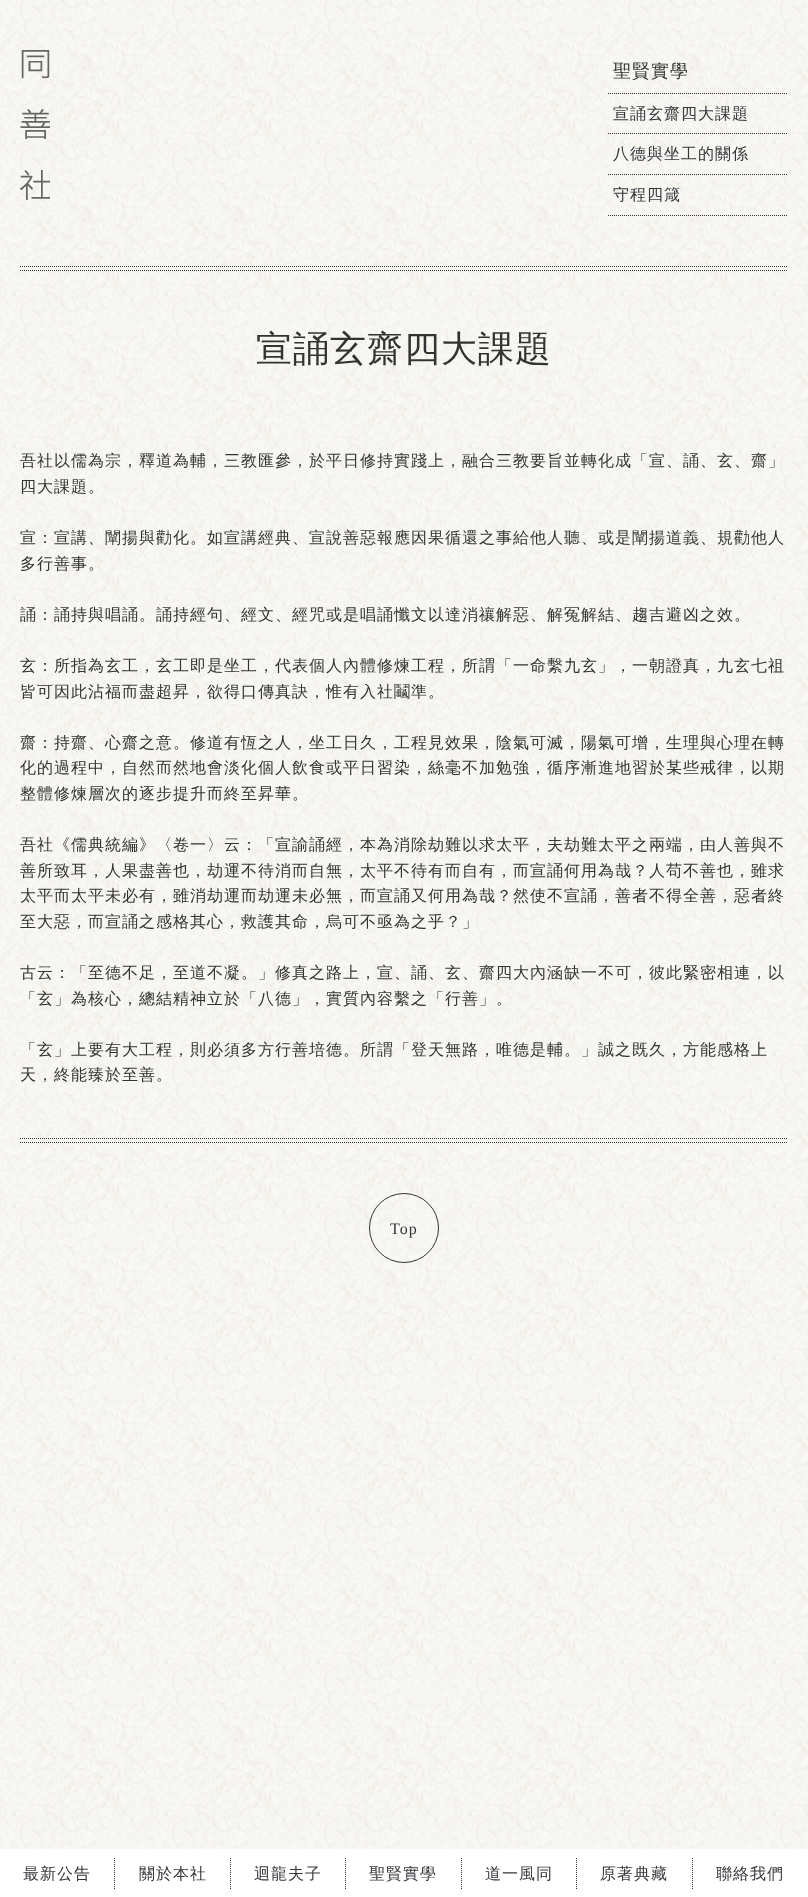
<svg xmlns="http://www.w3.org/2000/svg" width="808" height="1897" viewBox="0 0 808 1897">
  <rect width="100%" height="100%" fill="rgb(255,255,255)"/>
  <image x="0" y="0" width="808" height="1897" href="pic1.png"/>
  <image x="20" y="50" width="30" height="150" href="pic2.png"/>
  <path d="M608 93.5H788" fill="none" stroke="rgb(51,51,51)" stroke-dasharray="1 1"/>
  <text x="613" y="77" font-family="WenQuanYi Zen Hei" font-size="18" font-weight="500" letter-spacing="1" fill="rgb(51,51,51)">聖賢實學</text>
  <path d="M608 133.5H788" fill="none" stroke="rgb(51,51,51)" stroke-dasharray="1 1"/>
  <text x="613" y="119" font-family="WenQuanYi Zen Hei" font-size="16" font-weight="500" letter-spacing="1" fill="rgb(51,54,59)">宣誦玄齋四大課題</text>
  <path d="M608 174.5H788" fill="none" stroke="rgb(51,51,51)" stroke-dasharray="1 1"/>
  <text x="613" y="159" font-family="WenQuanYi Zen Hei" font-size="16" font-weight="500" letter-spacing="1" fill="rgb(51,54,59)">八德與坐工的關係</text>
  <path d="M608 215.5H788" fill="none" stroke="rgb(51,51,51)" stroke-dasharray="1 1"/>
  <text x="613" y="200" font-family="WenQuanYi Zen Hei" font-size="16" font-weight="500" letter-spacing="1" fill="rgb(51,54,59)">守程四箴</text>
  <path d="M20 266.5H788" fill="none" stroke="rgb(51,51,51)" stroke-dasharray="1 1"/>
  <path d="M20 270.5H788" fill="none" stroke="rgb(51,51,51)" stroke-dasharray="1 1"/>
  <text x="256" y="361" font-family="WenQuanYi Zen Hei" font-size="36" font-weight="500" letter-spacing="1" fill="rgb(51,51,51)">宣誦玄齋四大課題</text>
  <g font-family="WenQuanYi Zen Hei" font-size="16" font-weight="500" letter-spacing="1" fill="rgb(51,51,51)">
    <text>
      <tspan x="20" y="466">吾社以儒為宗，釋道為輔，三教匯參，於平日修持實踐上，融合三教要旨並轉化成「宣、誦、玄、齋」</tspan>
      <tspan x="20" y="492">四大課題。</tspan>
    </text>
    <text>
      <tspan x="20" y="543">宣：宣講、闡揚與勸化。如宣講經典、宣說善惡報應因果循還之事給他人聽、或是闡揚道義、規勸他人</tspan>
      <tspan x="20" y="569">多行善事。</tspan>
    </text>
    <text x="20" y="620">誦：誦持與唱誦。誦持經句、經文、經咒或是唱誦懺文以達消禳解惡、解冤解結、趨吉避凶之效。</text>
    <text>
      <tspan x="20" y="671">玄：所指為玄工，玄工即是坐工，代表個人內體修煉工程，所謂「一命繫九玄」，一朝證真，九玄七祖</tspan>
      <tspan x="20" y="697">皆可因此沾福而盡超昇，欲得口傳真訣，惟有入社鬮準。</tspan>
    </text>
    <text>
      <tspan x="20" y="748">齋：持齋、心齋之意。修道有恆之人，坐工日久，工程見效果，陰氣可滅，陽氣可增，生理與心理在轉</tspan>
      <tspan x="20" y="773">化的過程中，自然而然地會淡化個人飲食或平日習染，絲毫不加勉強，循序漸進地習於某些戒律，以期</tspan>
      <tspan x="20" y="799">整體修煉層次的逐步提升而終至昇華。</tspan>
    </text>
    <text>
      <tspan x="20" y="850">吾社《儒典統編》〈卷一〉云：「宣諭誦經，本為消除劫難以求太平，夫劫難太平之兩端，由人善與不</tspan>
      <tspan x="20" y="876">善所致耳，人果盡善也，劫運不待消而自無，太平不待有而自有，而宣誦何用為哉？人苟不善也，雖求</tspan>
      <tspan x="20" y="901">太平而太平未必有，雖消劫運而劫運未必無，而宣誦又何用為哉？然使不宣誦，善者不得全善，惡者終</tspan>
      <tspan x="20" y="927">至大惡，而宣誦之感格其心，救護其命，烏可不亟為之乎？」</tspan>
    </text>
    <text>
      <tspan x="20" y="978">古云：「至德不足，至道不凝。」修真之路上，宣、誦、玄、齋四大內涵缺一不可，彼此緊密相連，以</tspan>
      <tspan x="20" y="1004">「玄」為核心，總結精神立於「八德」，實質內容繫之「行善」。</tspan>
    </text>
    <text>
      <tspan x="20" y="1055">「玄」上要有大工程，則必須多方行善培德。所謂「登天無路，唯德是輔。」誠之既久，方能感格上</tspan>
      <tspan x="20" y="1080">天，終能臻於至善。</tspan>
    </text>
  </g>
  <path d="M20 1138.5H788" fill="none" stroke="rgb(51,51,51)" stroke-dasharray="1 1"/>
  <path d="M20 1142.5H788" fill="none" stroke="rgb(51,51,51)" stroke-dasharray="1 1"/>
  <circle cx="404" cy="1228" r="34.5" fill="none" stroke="rgb(51,51,51)"/>
  <text x="390" y="1234" font-family="Liberation Serif" font-size="16" letter-spacing="1" fill="rgb(51,54,59)">Top</text>
  <rect x="0" y="1849" width="808" height="48" fill="rgba(255,255,255,0.95)"/>
  <path d="M114.5 1858V1890" fill="none" stroke="rgb(51,51,51)" stroke-dasharray="1 1"/>
  <text x="23" y="1879" font-family="WenQuanYi Zen Hei" font-size="16" font-weight="500" letter-spacing="1" fill="rgb(51,54,59)">最新公告</text>
  <path d="M230.5 1858V1890" fill="none" stroke="rgb(51,51,51)" stroke-dasharray="1 1"/>
  <text x="139" y="1879" font-family="WenQuanYi Zen Hei" font-size="16" font-weight="500" letter-spacing="1" fill="rgb(51,54,59)">關於本社</text>
  <path d="M345.5 1858V1890" fill="none" stroke="rgb(51,51,51)" stroke-dasharray="1 1"/>
  <text x="254" y="1879" font-family="WenQuanYi Zen Hei" font-size="16" font-weight="500" letter-spacing="1" fill="rgb(51,54,59)">迴龍夫子</text>
  <path d="M461.5 1858V1890" fill="none" stroke="rgb(51,51,51)" stroke-dasharray="1 1"/>
  <text x="369" y="1879" font-family="WenQuanYi Zen Hei" font-size="16" font-weight="500" letter-spacing="1" fill="rgb(51,54,59)">聖賢實學</text>
  <path d="M576.5 1858V1890" fill="none" stroke="rgb(51,51,51)" stroke-dasharray="1 1"/>
  <text x="485" y="1879" font-family="WenQuanYi Zen Hei" font-size="16" font-weight="500" letter-spacing="1" fill="rgb(51,54,59)">道一風同</text>
  <path d="M692.5 1858V1890" fill="none" stroke="rgb(51,51,51)" stroke-dasharray="1 1"/>
  <g font-family="WenQuanYi Zen Hei" font-size="16" font-weight="500" letter-spacing="1" fill="rgb(51,54,59)">
    <text x="600" y="1879">原著典藏</text>
    <text x="716" y="1879">聯絡我們</text>
  </g>
</svg>
